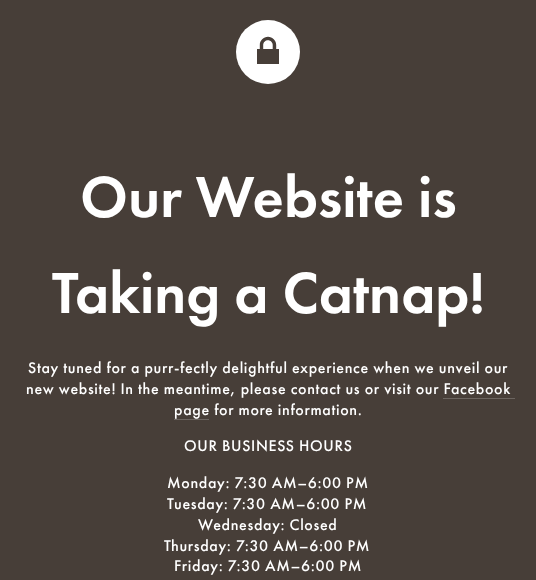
<svg xmlns="http://www.w3.org/2000/svg" width="536" height="580" viewBox="0 0 536 580">
  <rect width="100%" height="100%" fill="rgb(71,62,56)"/>
  <image x="236" y="20" width="64" height="64" href="pic1.png"/>
  <g font-family="Futura PT" font-size="60" font-weight="500" fill="rgb(255,255,255)">
    <text x="80" y="217">Our Website is</text>
    <text x="52" y="313">Taking a Catnap!</text>
  </g>
  <g font-family="'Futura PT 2'" font-size="16" font-weight="500" letter-spacing="0.65" fill="rgb(255,255,255)">
    <text x="28" y="373">Stay tuned for a purr-fectly delightful experience when we unveil our</text>
    <text x="26" y="394">new website! In the meantime, please contact us or visit our Facebook</text>
    <text x="174" y="415">page for more information.</text>
  </g>
  <rect x="443" y="398" width="72" height="1" fill="rgb(108,101,96)"/>
  <rect x="174" y="419" width="35" height="1" fill="rgb(108,101,96)"/>
  <g font-family="'Futura PT 2'" font-size="16" font-weight="500" letter-spacing="0.65" fill="rgb(255,255,255)">
    <text x="184" y="451">OUR BUSINESS HOURS</text>
    <text>
      <tspan x="167" y="488">Monday: 7:30 AM–6:00 PM</tspan>
      <tspan x="167" y="509">Tuesday: 7:30 AM–6:00 PM</tspan>
    </text>
    <text x="198" y="530">Wednesday: Closed</text>
    <text x="164" y="551">Thursday: 7:30 AM–6:00 PM</text>
    <text x="174" y="571">Friday: 7:30 AM–6:00 PM</text>
  </g>
</svg>
